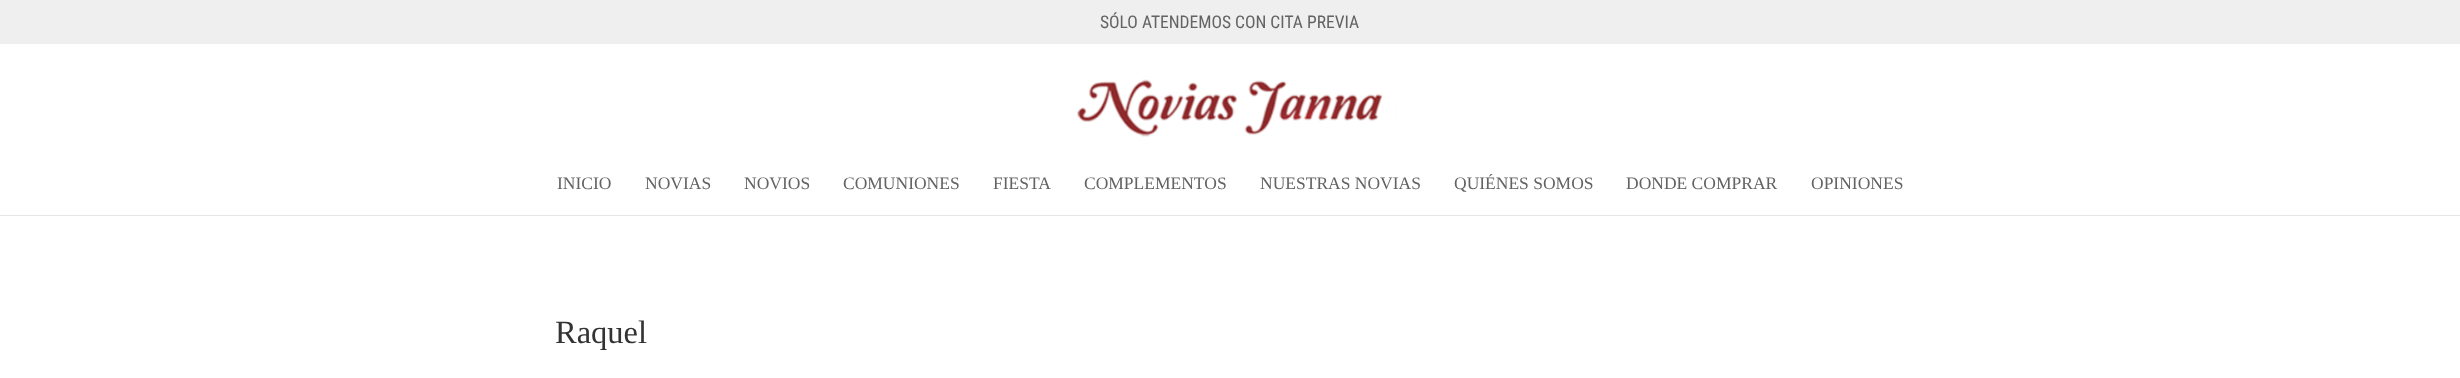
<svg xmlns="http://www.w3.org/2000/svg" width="2460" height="378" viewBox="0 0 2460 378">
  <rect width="100%" height="100%" fill="rgb(255,255,255)"/>
  <rect x="0" y="0" width="2460" height="44" fill="rgb(239,239,239)"/>
  <text x="1100" y="28" font-family="Roboto Condensed" font-size="17.5" fill="rgb(99,99,99)">SÓLO ATENDEMOS CON CITA PREVIA</text>
  <rect x="0" y="215" width="2460" height="1" fill="rgb(230,230,230)"/>
  <image x="1077" y="79" width="320" height="58" href="pic1.png"/>
  <g font-family="Liberation Serif" font-size="17.5" fill="rgb(99,99,99)">
    <text x="557" y="189">INICIO</text>
    <text x="645" y="189">NOVIAS</text>
    <text x="744" y="189">NOVIOS</text>
    <text x="843" y="189">COMUNIONES</text>
    <text x="993" y="189">FIESTA</text>
    <text x="1084" y="189">COMPLEMENTOS</text>
    <text x="1260" y="189">NUESTRAS NOVIAS</text>
    <text x="1454" y="189">QUIÉNES SOMOS</text>
    <text x="1626" y="189">DONDE COMPRAR</text>
    <text x="1811" y="189">OPINIONES</text>
  </g>
  <text x="555" y="343" font-family="Liberation Serif" font-size="32.5" fill="rgb(51,51,51)">Raquel</text>
</svg>
